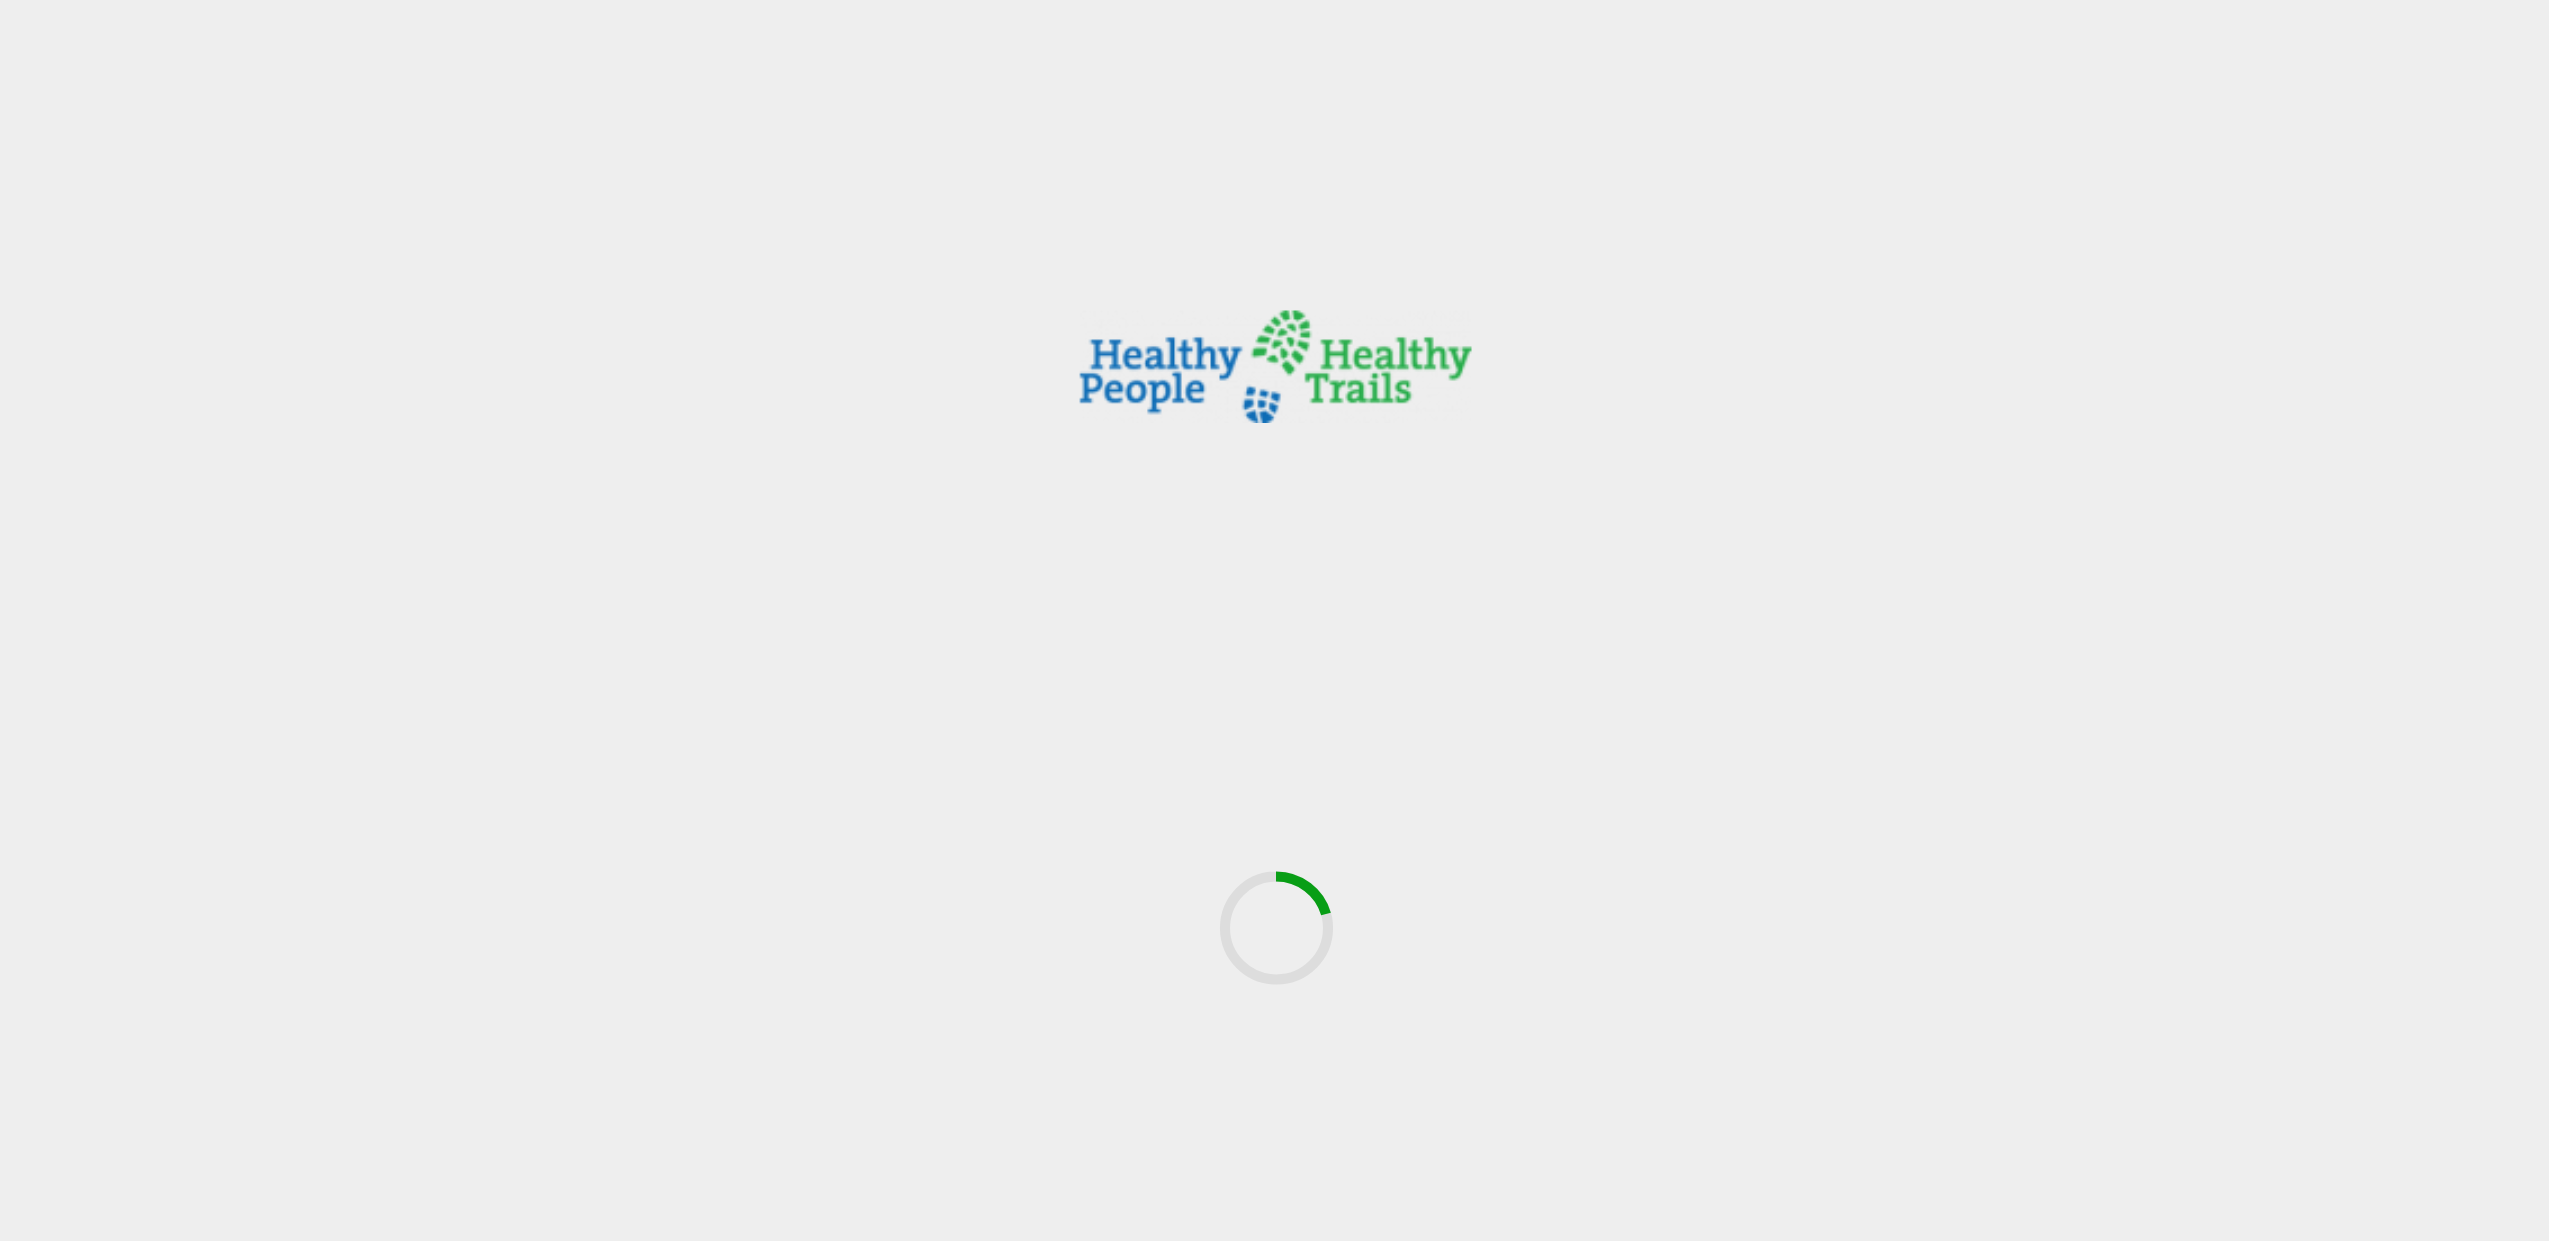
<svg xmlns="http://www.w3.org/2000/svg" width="2549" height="1241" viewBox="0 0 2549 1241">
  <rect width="100%" height="100%" fill="rgb(238,238,238)"/>
  <image x="1079" y="310" width="393" height="113" href="pic1.png"/>
  <path d="M1276 876.5C1305 876.5 1328 899.5 1328 928C1328 956.5 1305 979.5 1276.5 979.5C1248 979.5 1225 956.5 1225 928C1225 899.5 1248 876.5 1276.5 876.5Z" fill="none" stroke="rgb(221,221,221)" stroke-width="10.1"/>
  <path d="M1276 876.5C1300 876.5 1320 892.5 1326 914" fill="none" stroke="rgb(8,158,21)" stroke-width="10.1"/>
</svg>
